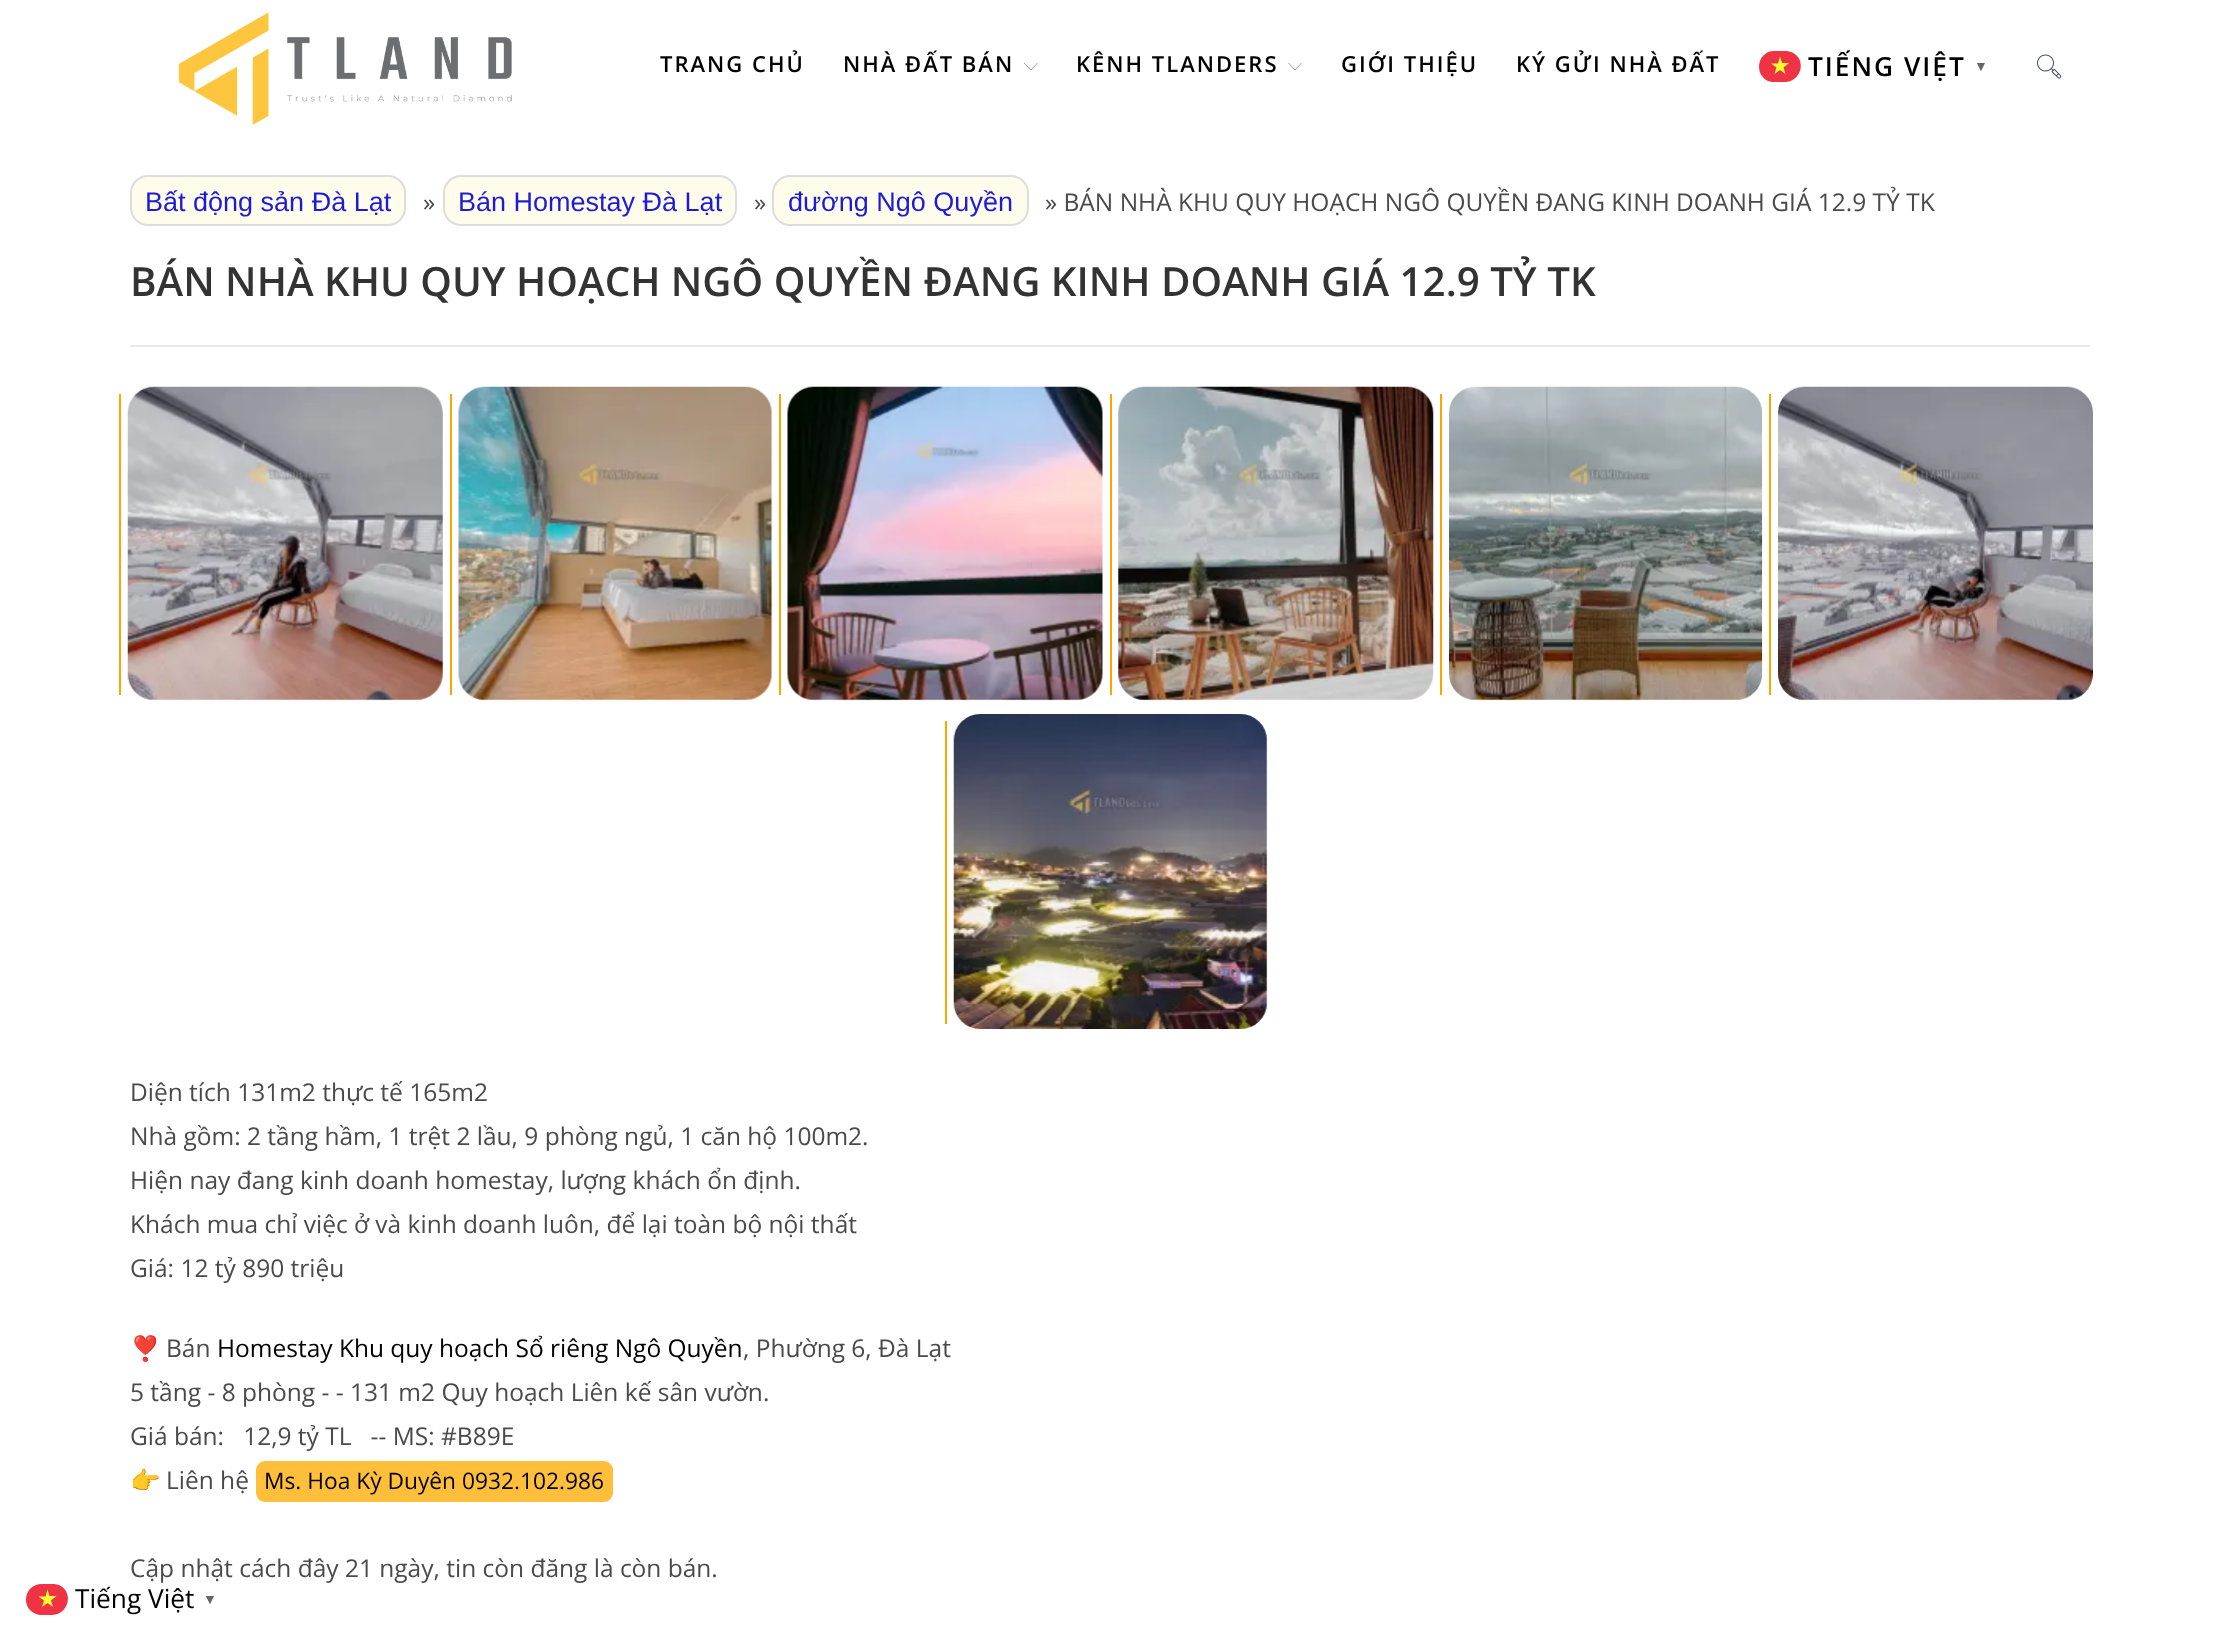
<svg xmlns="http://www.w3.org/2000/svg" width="2218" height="1647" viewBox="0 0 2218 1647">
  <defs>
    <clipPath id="clip1"><rect x="1759" y="51" width="42" height="31"/></clipPath>
    <clipPath id="clip2"><rect x="26" y="1584" width="42" height="31"/></clipPath>
  </defs>
  <rect width="100%" height="100%" fill="rgb(255,255,255)"/>
  <image x="178" y="12" width="334" height="113" href="pic1.png"/>
  <g font-family="Open Sans" font-size="22" font-weight="600" letter-spacing="2" fill="rgb(0,0,0)">
    <text x="660" y="72">TRANG CHỦ</text>
    <text x="843" y="72">NHÀ ĐẤT BÁN</text>
  </g>
  <path d="M1037.5 63L1031 70L1024 63" fill="none" stroke="rgb(45,62,80)" stroke-width="0.5"/>
  <text x="1076" y="72" font-family="Open Sans" font-size="22" font-weight="600" letter-spacing="2" fill="rgb(0,0,0)">KÊNH TLANDERS</text>
  <path d="M1301.5 63L1295 70L1288.5 63" fill="none" stroke="rgb(45,62,80)" stroke-width="0.5"/>
  <g font-family="Open Sans" font-size="22" font-weight="600" letter-spacing="2" fill="rgb(0,0,0)">
    <text x="1341" y="72">GIỚI THIỆU</text>
    <text x="1516" y="72">KÝ GỬI NHÀ ĐẤT</text>
  </g>
  <g clip-path="url(#clip1)">
    <path d="M1774 51C1780 51 1786 50 1791 52C1807 58 1802 81 1786 82C1780 82 1773 83 1768 81C1753 74 1758 51 1774 51Z" fill="rgb(240,51,68)"/>
  </g>
  <text x="1808" y="76" font-family="Open Sans" font-size="26.25" font-weight="600" letter-spacing="2" fill="rgb(0,0,0)">TIẾNG VIỆT</text>
  <path d="M1785.5 74L1780 70L1774.5 74L1776.5 67.5L1771 63.5H1778L1780 56.5L1782 63H1789L1783.5 67.5Z" fill="rgb(255,255,51)" fill-rule="evenodd"/>
  <text x="1974" y="71" font-family="Liberation Sans" font-size="14" font-weight="bold" letter-spacing="2" fill="rgb(102,102,102)">▼</text>
  <image x="2037" y="54" width="25" height="25" href="pic2.png"/>
  <rect x="131" y="176" width="274" height="49" rx="17" fill="rgb(255,252,236)" stroke="rgb(221,221,221)" stroke-width="2"/>
  <text x="145" y="211" font-family="Liberation Sans" font-size="27" fill="rgb(28,28,216)">Bất động sản Đà Lạt</text>
  <text x="423" y="211" font-family="Open Sans" font-size="24.5" fill="rgb(74,74,74)">»</text>
  <rect x="444" y="176" width="292" height="49" rx="17" fill="rgb(255,252,236)" stroke="rgb(221,221,221)" stroke-width="2"/>
  <text x="458" y="211" font-family="Liberation Sans" font-size="27" fill="rgb(28,28,216)">Bán Homestay Đà Lạt</text>
  <text x="754" y="211" font-family="Open Sans" font-size="24.5" fill="rgb(74,74,74)">»</text>
  <rect x="773" y="176" width="255" height="49" rx="17" fill="rgb(255,252,236)" stroke="rgb(221,221,221)" stroke-width="2"/>
  <text x="788" y="211" font-family="Liberation Sans" font-size="27" fill="rgb(28,28,216)">đường Ngô Quyền</text>
  <text x="1045" y="211" font-family="Open Sans" font-size="24.5" fill="rgb(74,74,74)">» BÁN NHÀ KHU QUY HOẠCH NGÔ QUYỀN ĐANG KINH DOANH GIÁ 12.9 TỶ TK</text>
  <text x="130" y="296" font-family="Open Sans" font-size="40.25" font-weight="600" fill="rgb(51,51,51)">BÁN NHÀ KHU QUY HOẠCH NGÔ QUYỀN ĐANG KINH DOANH GIÁ 12.9 TỶ TK</text>
  <rect x="130" y="345" width="1960" height="2" fill="rgb(233,233,233)"/>
  <rect x="119" y="394" width="2" height="301" fill="rgb(255,165,0)"/>
  <image x="127" y="386" width="316" height="315" href="pic3.png"/>
  <rect x="450" y="394" width="2" height="301" fill="rgb(255,165,0)"/>
  <image x="458" y="386" width="315" height="315" href="pic4.png"/>
  <rect x="779" y="394" width="2" height="301" fill="rgb(255,165,0)"/>
  <image x="787" y="386" width="316" height="315" href="pic5.png"/>
  <rect x="1110" y="394" width="2" height="301" fill="rgb(255,165,0)"/>
  <image x="1118" y="386" width="316" height="315" href="pic6.png"/>
  <rect x="1440" y="394" width="2" height="301" fill="rgb(255,165,0)"/>
  <image x="1449" y="386" width="314" height="315" href="pic7.png"/>
  <rect x="1769" y="394" width="2" height="301" fill="rgb(255,165,0)"/>
  <image x="1778" y="386" width="315" height="315" href="pic8.png"/>
  <rect x="945" y="721" width="2" height="303" fill="rgb(255,165,0)"/>
  <image x="953" y="714" width="315" height="315" href="pic9.png"/>
  <g font-family="Open Sans" font-size="24.5" fill="rgb(74,74,74)">
    <text>
      <tspan x="130" y="1101">Diện tích 131m2 thực tế 165m2</tspan>
      <tspan x="130" y="1145">Nhà gồm: 2 tầng hầm, 1 trệt 2 lầu, 9 phòng ngủ, 1 căn hộ 100m2.</tspan>
      <tspan x="130" y="1189">Hiện nay đang kinh doanh homestay, lượng khách ổn định.</tspan>
      <tspan x="130" y="1233">Khách mua chỉ việc ở và kinh doanh luôn, để lại toàn bộ nội thất</tspan>
      <tspan x="130" y="1277">Giá: 12 tỷ 890 triệu</tspan>
    </text>
  </g>
  <text x="130" y="1357" font-family="Noto Color Emoji" font-size="24.5" fill="rgb(74,74,74)">❣️</text>
  <text x="166" y="1357" font-family="Open Sans" font-size="24.5" fill="rgb(74,74,74)">Bán</text>
  <text x="217" y="1357" font-family="Open Sans" font-size="24.5" fill="rgb(0,0,0)">Homestay Khu quy hoạch Sổ riêng Ngô Quyền</text>
  <g font-family="Open Sans" font-size="24.5" fill="rgb(74,74,74)">
    <text x="743" y="1357">, Phường 6, Đà Lạt</text>
    <text xml:space="preserve"><tspan x="130" y="1401">5 tầng - 8 phòng - - 131 m2 Quy hoạch Liên kế sân vườn.</tspan><tspan x="130" y="1445">Giá bán:   12,9 tỷ TL   -- MS: #B89E</tspan></text>
  </g>
  <text x="130" y="1489" font-family="Noto Color Emoji" font-size="24.5" fill="rgb(74,74,74)">👉</text>
  <text x="166" y="1489" font-family="Open Sans" font-size="24.5" fill="rgb(74,74,74)">Liên hệ</text>
  <rect x="256" y="1461" width="357" height="41" rx="9" fill="rgb(255,191,59)"/>
  <text x="264" y="1489" font-family="Open Sans" font-size="22.75" fill="rgb(0,0,0)">Ms. Hoa Kỳ Duyên 0932.102.986</text>
  <text x="130" y="1577" font-family="Open Sans" font-size="24.5" fill="rgb(74,74,74)">Cập nhật cách đây 21 ngày, tin còn đăng là còn bán.</text>
  <text x="75" y="1608" font-family="Open Sans" font-size="26.25" fill="rgb(0,0,0)">Tiếng Việt</text>
  <g clip-path="url(#clip2)">
    <path d="M42 1584C47 1584 53 1583 59 1585C74 1592 69 1614 52 1615C47 1615 41 1616 36 1614C20 1608 24 1584 42 1584Z" fill="rgb(240,51,68)"/>
  </g>
  <path d="M53 1607L47.5 1603L42 1607L44 1600.5L38.5 1596.5H45.5L47.5 1589.5L49.5 1596H56.5L51 1600.5Z" fill="rgb(255,255,51)" fill-rule="evenodd"/>
  <text x="203" y="1604" font-family="Liberation Sans" font-size="14" font-weight="bold" fill="rgb(102,102,102)">▼</text>
</svg>
